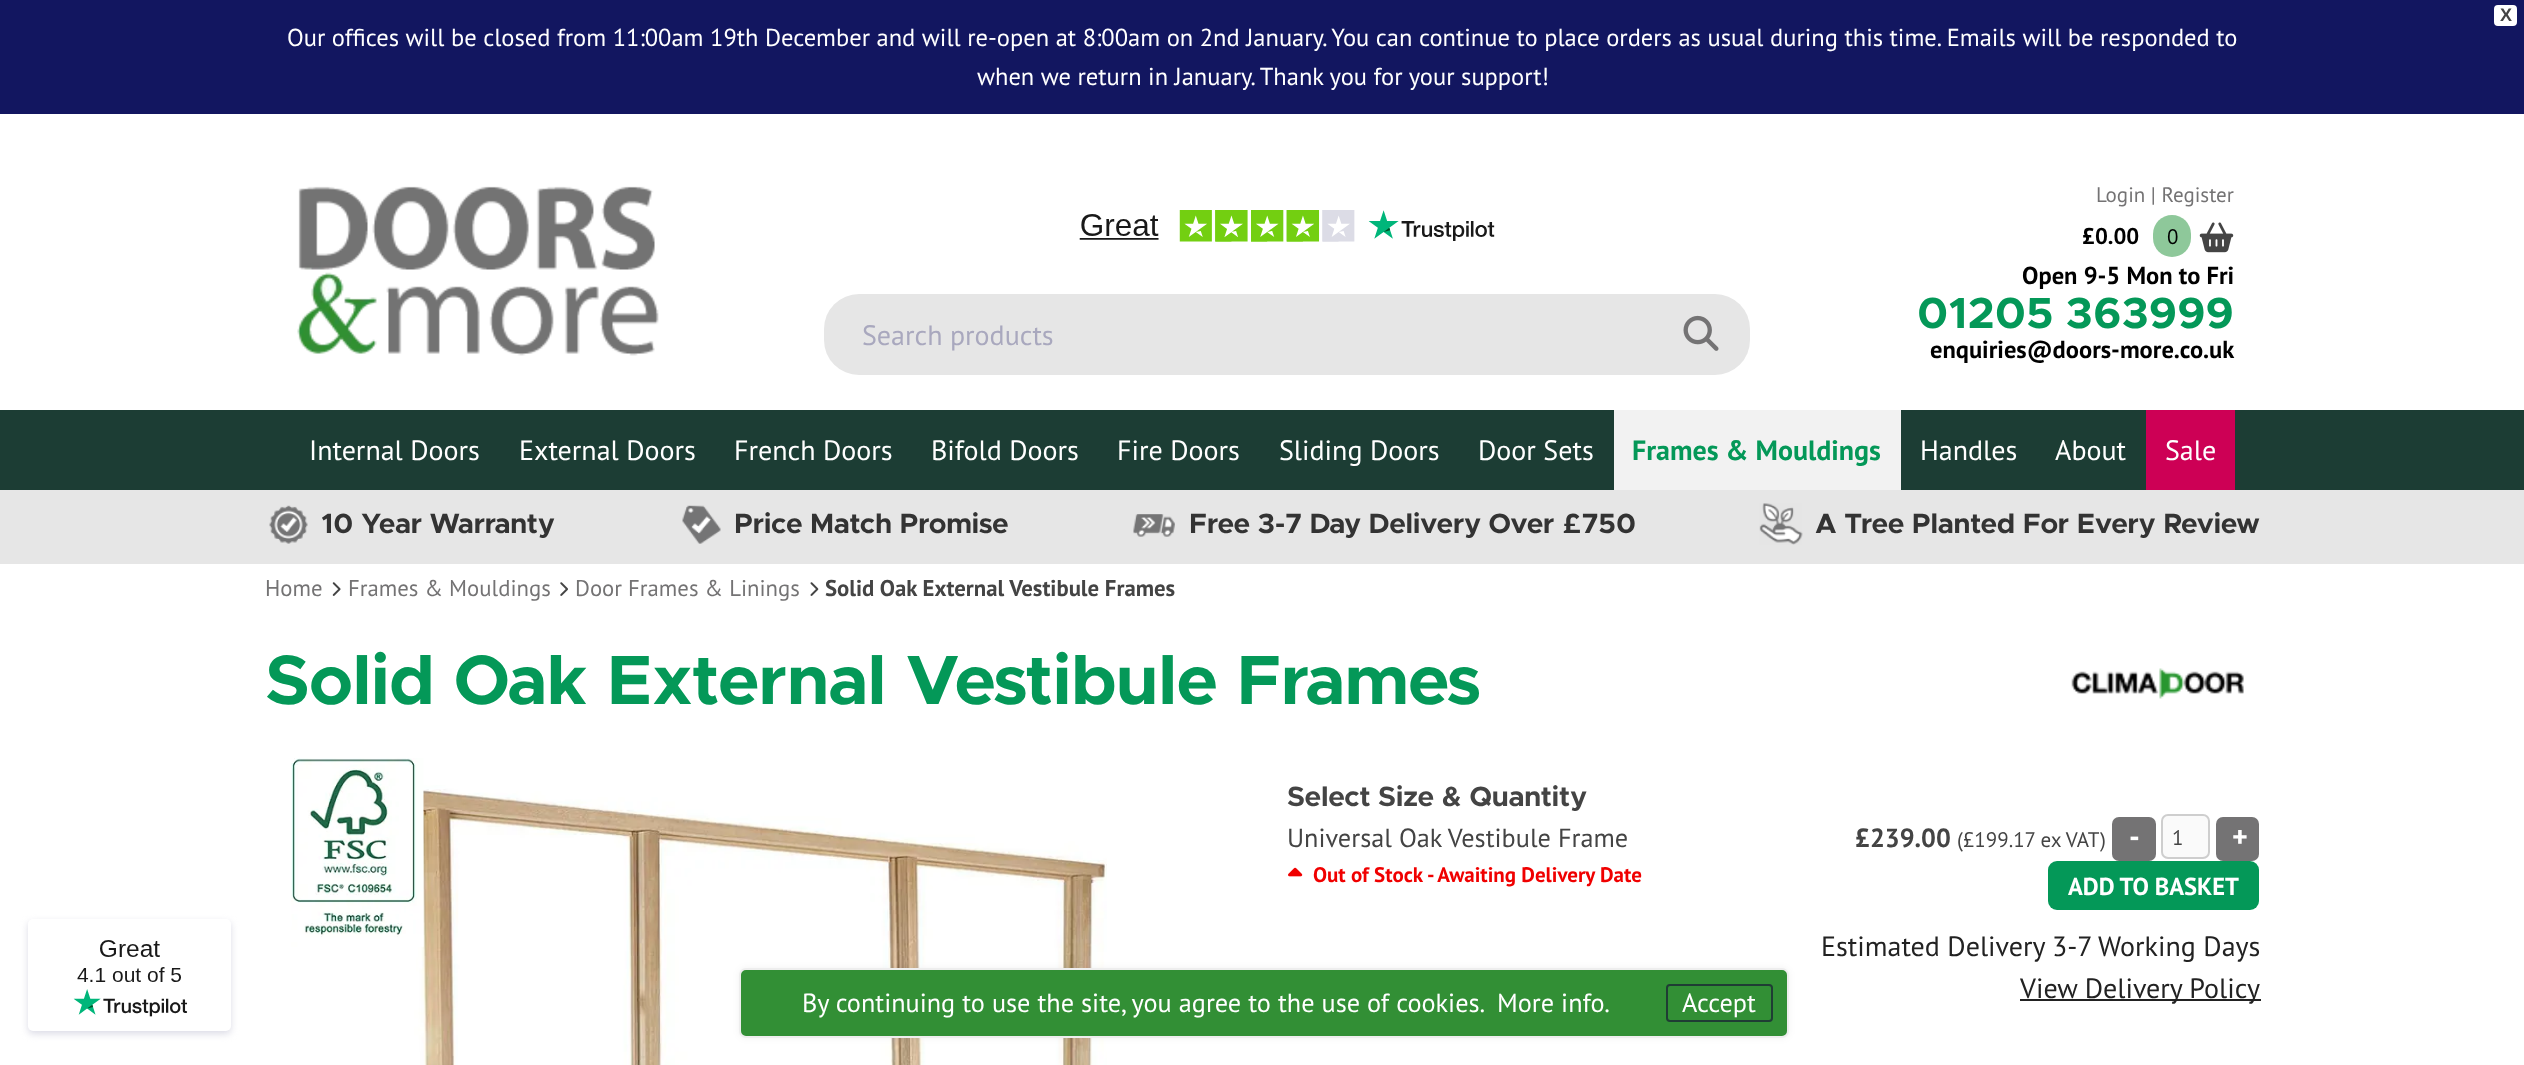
<svg xmlns="http://www.w3.org/2000/svg" width="2524" height="1065" viewBox="0 0 2524 1065">
  <rect width="100%" height="100%" fill="rgb(255,255,255)"/>
  <rect x="0" y="0" width="2524" height="114" fill="rgb(18,22,96)"/>
  <rect x="2495" y="6" width="21" height="19" rx="3" fill="rgb(255,255,255)" stroke="rgb(255,255,255)" stroke-width="2"/>
  <text x="2500" y="21" font-family="Liberation Sans" font-size="18" font-weight="bold" fill="rgb(68,68,68)">X</text>
  <g font-family="PT Sans" font-size="24.5" fill="rgb(255,255,255)">
    <text x="287" y="46">Our offices will be closed from 11:00am 19th December and will re-open at 8:00am on 2nd January. You can continue to place orders as usual during this time. Emails will be responded to</text>
    <text x="977" y="85">when we return in January. Thank you for your support!</text>
  </g>
  <rect x="28" y="922" width="203" height="112" rx="5" fill="rgb(220,220,230)" filter="blur(3.5px)"/>
  <rect x="28" y="919" width="203" height="112" rx="5" fill="rgb(255,255,255)"/>
  <image x="73" y="940" width="115" height="77" href="pic1.png"/>
  <image x="297" y="186" width="362" height="170" href="pic2.png"/>
  <image x="1079" y="210" width="416" height="32" href="pic3.png"/>
  <rect x="824" y="294" width="926" height="81" rx="35" fill="rgb(230,230,230)"/>
  <text x="862" y="345" font-family="PT Sans" font-size="28" fill="rgb(169,168,190)">Search products</text>
  <image x="1683" y="315" width="36" height="36" href="pic4.png"/>
  <text x="2096" y="202" font-family="PT Sans" font-size="21" fill="rgb(116,115,116)">Login | Register</text>
  <text x="2082" y="244" font-family="PT Sans" font-size="22.75" font-weight="bold" fill="rgb(0,0,0)">£0.00</text>
  <rect x="2153" y="215" width="38" height="42" rx="19" fill="rgb(142,200,154)"/>
  <text x="2167" y="244" font-family="PT Sans" font-size="21" fill="rgb(0,0,0)">0</text>
  <image x="2199" y="222" width="35" height="31" href="pic5.png"/>
  <text x="2022" y="284" font-family="PT Sans" font-size="24.5" font-weight="bold" fill="rgb(0,0,0)">Open 9-5 Mon to Fri</text>
  <text x="1917" y="328" font-family="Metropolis" font-size="43.75" font-weight="bold" fill="rgb(4,152,88)">01205 363999</text>
  <text x="1930" y="358" font-family="PT Sans" font-size="24.5" font-weight="bold" fill="rgb(0,0,0)">enquiries@doors-more.co.uk</text>
  <rect x="0" y="410" width="2524" height="80" fill="rgb(28,61,52)"/>
  <g font-family="PT Sans" font-size="28" fill="rgb(255,255,255)">
    <text x="309" y="460">Internal Doors</text>
    <text x="519" y="460">External Doors</text>
    <text x="734" y="460">French Doors</text>
    <text x="931" y="460">Bifold Doors</text>
    <text x="1117" y="460">Fire Doors</text>
    <text x="1279" y="460">Sliding Doors</text>
    <text x="1478" y="460">Door Sets</text>
  </g>
  <rect x="1614" y="410" width="287" height="80" fill="rgb(242,242,242)"/>
  <text x="1632" y="460" font-family="PT Sans" font-size="28" font-weight="bold" fill="rgb(4,152,88)">Frames &amp; Mouldings</text>
  <g font-family="PT Sans" font-size="28" fill="rgb(255,255,255)">
    <text x="1920" y="460">Handles</text>
    <text x="2055" y="460">About</text>
  </g>
  <rect x="2146" y="410" width="89" height="80" fill="rgb(205,0,85)"/>
  <text x="2165" y="460" font-family="PT Sans" font-size="28" fill="rgb(255,255,255)">Sale</text>
  <rect x="0" y="490" width="2524" height="74" fill="rgb(230,230,230)"/>
  <image x="269" y="505" width="39" height="39" href="pic6.png"/>
  <text x="321" y="533" font-family="Metropolis" font-size="28" font-weight="bold" fill="rgb(51,51,51)">10 Year Warranty</text>
  <image x="682" y="505" width="39" height="39" href="pic7.png"/>
  <text x="734" y="533" font-family="Metropolis" font-size="28" font-weight="bold" fill="rgb(51,51,51)">Price Match Promise</text>
  <image x="1133" y="514" width="42" height="23" href="pic8.png"/>
  <text x="1189" y="533" font-family="Metropolis" font-size="28" font-weight="bold" fill="rgb(51,51,51)">Free 3-7 Day Delivery Over £750</text>
  <image x="1759" y="503" width="44" height="42" href="pic9.png"/>
  <text x="1815" y="533" font-family="Metropolis" font-size="28" font-weight="bold" fill="rgb(51,51,51)">A Tree Planted For Every Review</text>
  <text x="265" y="596" font-family="PT Sans" font-size="22.75" fill="rgb(116,115,116)">Home</text>
  <image x="332" y="582" width="9" height="14" href="pic10.png"/>
  <text x="348" y="596" font-family="PT Sans" font-size="22.75" fill="rgb(116,115,116)">Frames &amp; Mouldings</text>
  <image x="560" y="582" width="8" height="14" href="pic11.png"/>
  <text x="575" y="596" font-family="PT Sans" font-size="22.75" fill="rgb(116,115,116)">Door Frames &amp; Linings</text>
  <image x="810" y="582" width="9" height="14" href="pic12.png"/>
  <text x="825" y="596" font-family="PT Sans" font-size="22.75" font-weight="bold" fill="rgb(68,68,68)">Solid Oak External Vestibule Frames</text>
  <text x="265" y="704" font-family="Metropolis" font-size="70" font-weight="bold" fill="rgb(4,152,88)">Solid Oak External Vestibule Frames</text>
  <image x="2071" y="668" width="173" height="31" href="pic13.png"/>
  <image x="406" y="785" width="701" height="280" href="pic15.png"/>
  <image x="291" y="758" width="133" height="189" href="pic14.png"/>
  <text x="1287" y="806" font-family="Metropolis" font-size="28" font-weight="bold" fill="rgb(68,68,68)">Select Size &amp; Quantity</text>
  <text x="1287" y="847" font-family="PT Sans" font-size="26.25" fill="rgb(68,68,68)">Universal Oak Vestibule Frame</text>
  <image x="1288" y="867" width="15" height="10" href="pic16.png"/>
  <text x="1313" y="882" font-family="PT Sans" font-size="21" font-weight="bold" fill="rgb(240,0,0)">Out of Stock - Awaiting Delivery Date</text>
  <text x="1855" y="847" font-family="PT Sans" font-size="26.25" font-weight="bold" fill="rgb(68,68,68)">£239.00</text>
  <text x="1957" y="847" font-family="PT Sans" font-size="21" fill="rgb(68,68,68)">(£199.17 ex VAT)</text>
  <rect x="2112" y="817" width="44" height="44" rx="7" fill="rgb(116,115,116)"/>
  <text x="2129" y="847" font-family="PT Sans" font-size="30" font-weight="bold" fill="rgb(255,255,255)">-</text>
  <rect x="2162" y="815" width="47" height="43" rx="6" fill="rgb(250,250,250)" stroke="rgb(206,206,206)" stroke-width="2"/>
  <text x="2172" y="845" font-family="PT Sans" font-size="21" fill="rgb(68,68,68)">1</text>
  <rect x="2216" y="817" width="43" height="44" rx="7" fill="rgb(116,115,116)"/>
  <text x="2232" y="847" font-family="PT Sans" font-size="30" font-weight="bold" fill="rgb(255,255,255)">+</text>
  <rect x="2048" y="861" width="211" height="49" rx="9" fill="rgb(4,152,88)"/>
  <text x="2068" y="895" font-family="PT Sans" font-size="24.5" font-weight="bold" fill="rgb(255,255,255)">ADD TO BASKET</text>
  <text x="1821" y="956" font-family="PT Sans" font-size="28" fill="rgb(34,34,34)">Estimated Delivery 3-7 Working Days</text>
  <rect x="2020" y="999" width="241" height="2" fill="rgb(34,34,34)"/>
  <text x="2020" y="998" font-family="PT Sans" font-size="28" fill="rgb(34,34,34)">View Delivery Policy</text>
  <rect x="739" y="968" width="1050" height="70" rx="7" fill="rgba(0,0,0,0.05)" filter="blur(3.5px)"/>
  <rect x="740" y="969" width="1048" height="68" rx="6" fill="rgb(50,143,53)" stroke="rgb(238,238,238)" stroke-width="2"/>
  <g font-family="PT Sans" font-size="26.25" fill="rgb(255,255,255)">
    <text x="802" y="1012">By continuing to use the site, you agree to the use of cookies.</text>
    <text x="1497" y="1012">More info.</text>
  </g>
  <rect x="1667" y="985" width="105" height="36" rx="3" fill="none" stroke="rgb(31,61,52)" stroke-width="2"/>
  <text x="1682" y="1012" font-family="PT Sans" font-size="26.25" fill="rgb(255,255,255)">Accept</text>
</svg>
